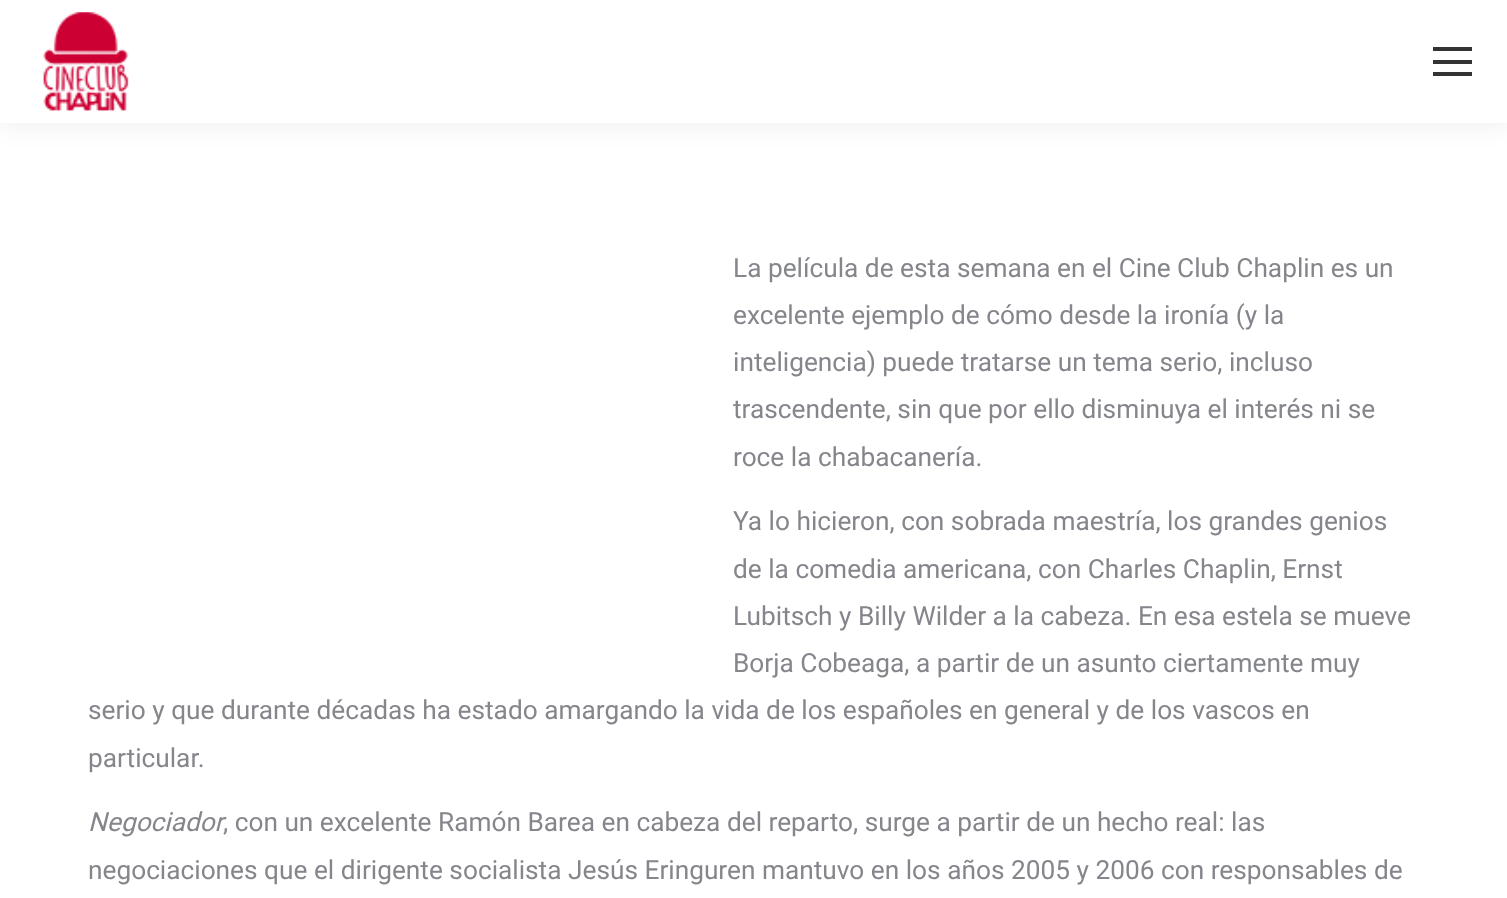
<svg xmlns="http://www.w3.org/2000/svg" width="1507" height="898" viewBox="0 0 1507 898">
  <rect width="100%" height="100%" fill="rgb(255,255,255)"/>
  <rect x="-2" y="-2" width="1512" height="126" fill="rgba(0,0,0,0.07)" filter="blur(13px)"/>
  <rect x="0" y="0" width="1507" height="123" fill="rgb(255,255,255)"/>
  <image x="43" y="12" width="86" height="99" href="pic1.png"/>
  <rect x="1433" y="47" width="39" height="4" fill="rgb(51,51,51)"/>
  <rect x="1433" y="60" width="39" height="4" fill="rgb(51,51,51)"/>
  <rect x="1433" y="72" width="39" height="4" fill="rgb(51,51,51)"/>
  <g font-family="Roboto" font-size="26.25" fill="rgb(133,134,140)">
    <text>
      <tspan x="733" y="277">La película de esta semana en el Cine Club Chaplin es un</tspan>
      <tspan x="733" y="324">excelente ejemplo de cómo desde la ironía (y la</tspan>
      <tspan x="733" y="371">inteligencia) puede tratarse un tema serio, incluso</tspan>
      <tspan x="733" y="418">trascendente, sin que por ello disminuya el interés ni se</tspan>
      <tspan x="733" y="466">roce la chabacanería.</tspan>
    </text>
    <text>
      <tspan x="733" y="530">Ya lo hicieron, con sobrada maestría, los grandes genios</tspan>
      <tspan x="733" y="578">de la comedia americana, con Charles Chaplin, Ernst</tspan>
      <tspan x="733" y="625">Lubitsch y Billy Wilder a la cabeza. En esa estela se mueve</tspan>
      <tspan x="733" y="672">Borja Cobeaga, a partir de un asunto ciertamente muy</tspan>
    </text>
    <text>
      <tspan x="88" y="719">serio y que durante décadas ha estado amargando la vida de los españoles en general y de los vascos en</tspan>
      <tspan x="88" y="767">particular.</tspan>
    </text>
  </g>
  <text x="88" y="831" font-family="Roboto" font-size="26.25" font-style="italic" fill="rgb(133,134,140)">Negociador</text>
  <g font-family="Roboto" font-size="26.25" fill="rgb(133,134,140)">
    <text x="223" y="831">, con un excelente Ramón Barea en cabeza del reparto, surge a partir de un hecho real: las</text>
    <text x="88" y="879">negociaciones que el dirigente socialista Jesús Eringuren mantuvo en los años 2005 y 2006 con responsables de</text>
  </g>
</svg>
